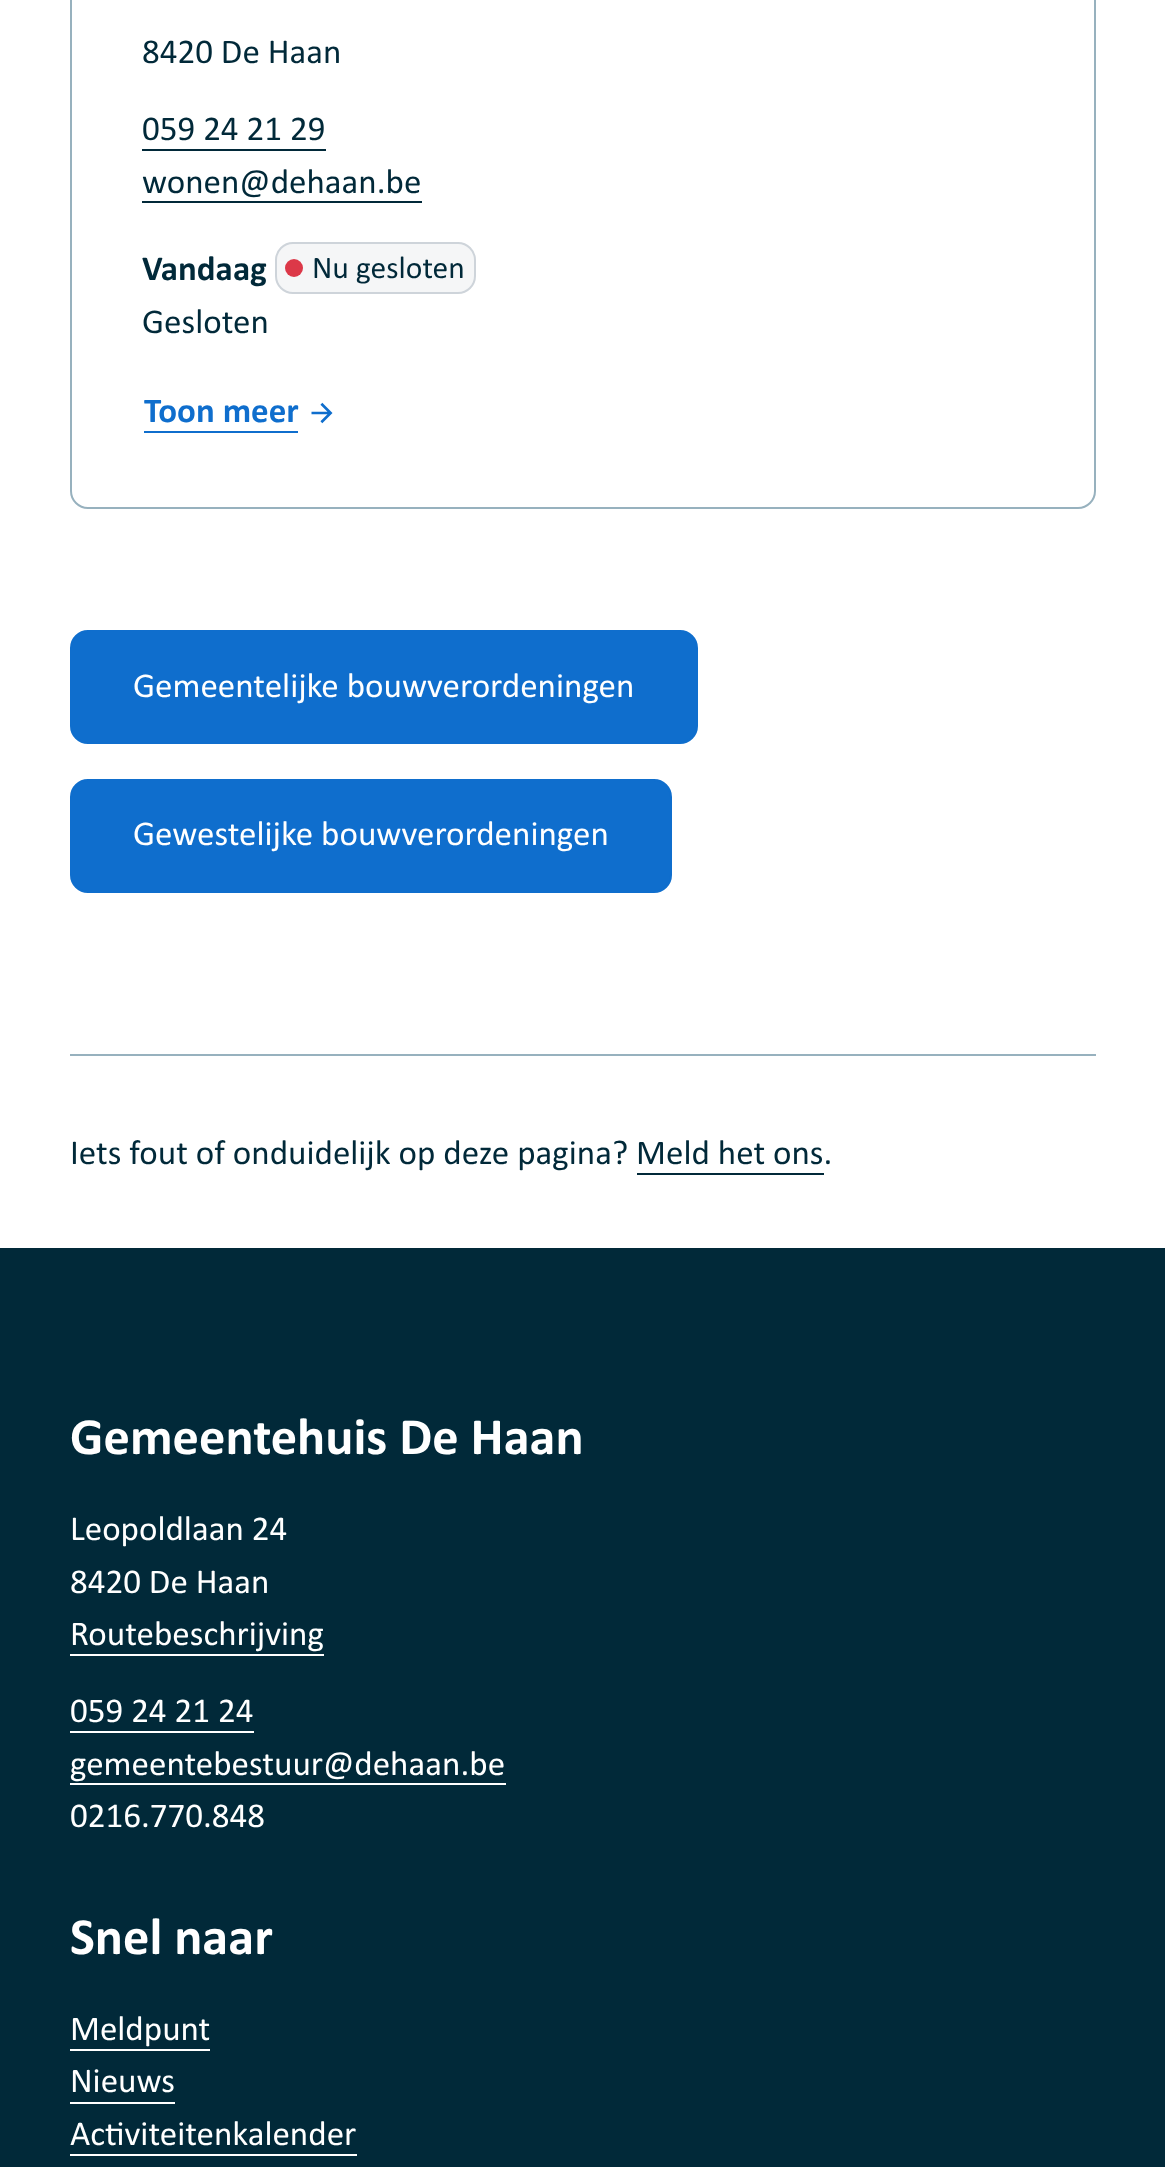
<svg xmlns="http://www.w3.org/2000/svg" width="1165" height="2167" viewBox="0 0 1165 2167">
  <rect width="100%" height="100%" fill="rgb(255,255,255)"/>
  <rect x="71" y="-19" width="1024" height="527" rx="17" fill="none" stroke="rgb(151,177,190)" stroke-width="2"/>
  <g font-family="Calibri" font-size="35" fill="rgb(1,41,57)">
    <text x="142" y="63">8420 De Haan</text>
    <text x="142" y="140">059 24 21 29</text>
  </g>
  <rect x="142" y="149" width="184" height="2" fill="rgb(1,41,57)"/>
  <text x="142" y="193" font-family="Calibri" font-size="35" fill="rgb(1,41,57)">wonen@dehaan.be</text>
  <rect x="142" y="201" width="280" height="2" fill="rgb(1,41,57)"/>
  <text x="142" y="280" font-family="Calibri" font-size="35" font-weight="bold" fill="rgb(1,41,57)">Vandaag</text>
  <rect x="276" y="243" width="199" height="50" rx="17" fill="rgb(245,246,247)" stroke="rgb(206,212,218)" stroke-width="2"/>
  <circle cx="294" cy="268" r="9" fill="rgb(220,56,72)"/>
  <text x="312" y="278" font-family="Calibri" font-size="31.5" fill="rgb(1,41,57)">Nu gesloten</text>
  <text x="142" y="333" font-family="Calibri" font-size="35" fill="rgb(1,41,57)">Gesloten</text>
  <text x="144" y="422" font-family="Calibri" font-size="35" font-weight="bold" fill="rgb(15,110,205)">Toon meer</text>
  <rect x="144" y="431" width="154" height="2" fill="rgb(15,110,205)"/>
  <image x="311" y="402" width="22" height="22" href="pic1.png"/>
  <rect x="71" y="631" width="626" height="112" rx="17" fill="rgb(15,110,205)" stroke="rgb(15,110,205)" stroke-width="2"/>
  <text x="133" y="697" font-family="Calibri" font-size="35" fill="rgb(255,255,255)">Gemeentelijke bouwverordeningen</text>
  <rect x="71" y="780" width="600" height="112" rx="17" fill="rgb(15,110,205)" stroke="rgb(15,110,205)" stroke-width="2"/>
  <text x="133" y="845" font-family="Calibri" font-size="35" fill="rgb(255,255,255)">Gewestelijke bouwverordeningen</text>
  <rect x="70" y="1054" width="1026" height="2" fill="rgb(151,177,190)"/>
  <text x="70" y="1164" font-family="Calibri" font-size="35" fill="rgb(1,41,57)">Iets fout of onduidelijk op deze pagina? Meld het ons.</text>
  <rect x="637" y="1173" width="187" height="2" fill="rgb(1,41,57)"/>
  <rect x="0" y="1248" width="1165" height="919" fill="rgb(1,41,57)"/>
  <text x="70" y="1454" font-family="Calibri" font-size="52.5" font-weight="bold" fill="rgb(255,255,255)">Gemeentehuis De Haan</text>
  <g font-family="Calibri" font-size="35" fill="rgb(255,255,255)">
    <text>
      <tspan x="70" y="1540">Leopoldlaan 24</tspan>
      <tspan x="70" y="1593">8420 De Haan</tspan>
      <tspan x="70" y="1645">Routebeschrijving</tspan>
    </text>
  </g>
  <rect x="70" y="1654" width="254" height="2" fill="rgb(255,255,255)"/>
  <text x="70" y="1722" font-family="Calibri" font-size="35" fill="rgb(255,255,255)">059 24 21 24</text>
  <rect x="70" y="1731" width="184" height="2" fill="rgb(255,255,255)"/>
  <text x="70" y="1775" font-family="Calibri" font-size="35" fill="rgb(255,255,255)">gemeentebestuur@dehaan.be</text>
  <rect x="70" y="1783" width="436" height="2" fill="rgb(255,255,255)"/>
  <text x="70" y="1827" font-family="Calibri" font-size="35" fill="rgb(255,255,255)">0216.770.848</text>
  <text x="70" y="1954" font-family="Calibri" font-size="52.5" font-weight="bold" fill="rgb(255,255,255)">Snel naar</text>
  <text x="70" y="2040" font-family="Calibri" font-size="35" fill="rgb(255,255,255)">Meldpunt</text>
  <rect x="70" y="2049" width="140" height="2" fill="rgb(255,255,255)"/>
  <text x="70" y="2092" font-family="Calibri" font-size="35" fill="rgb(255,255,255)">Nieuws</text>
  <rect x="70" y="2102" width="105" height="2" fill="rgb(255,255,255)"/>
  <text x="70" y="2145" font-family="Calibri" font-size="35" fill="rgb(255,255,255)">Activiteitenkalender</text>
  <rect x="70" y="2154" width="287" height="2" fill="rgb(255,255,255)"/>
</svg>
